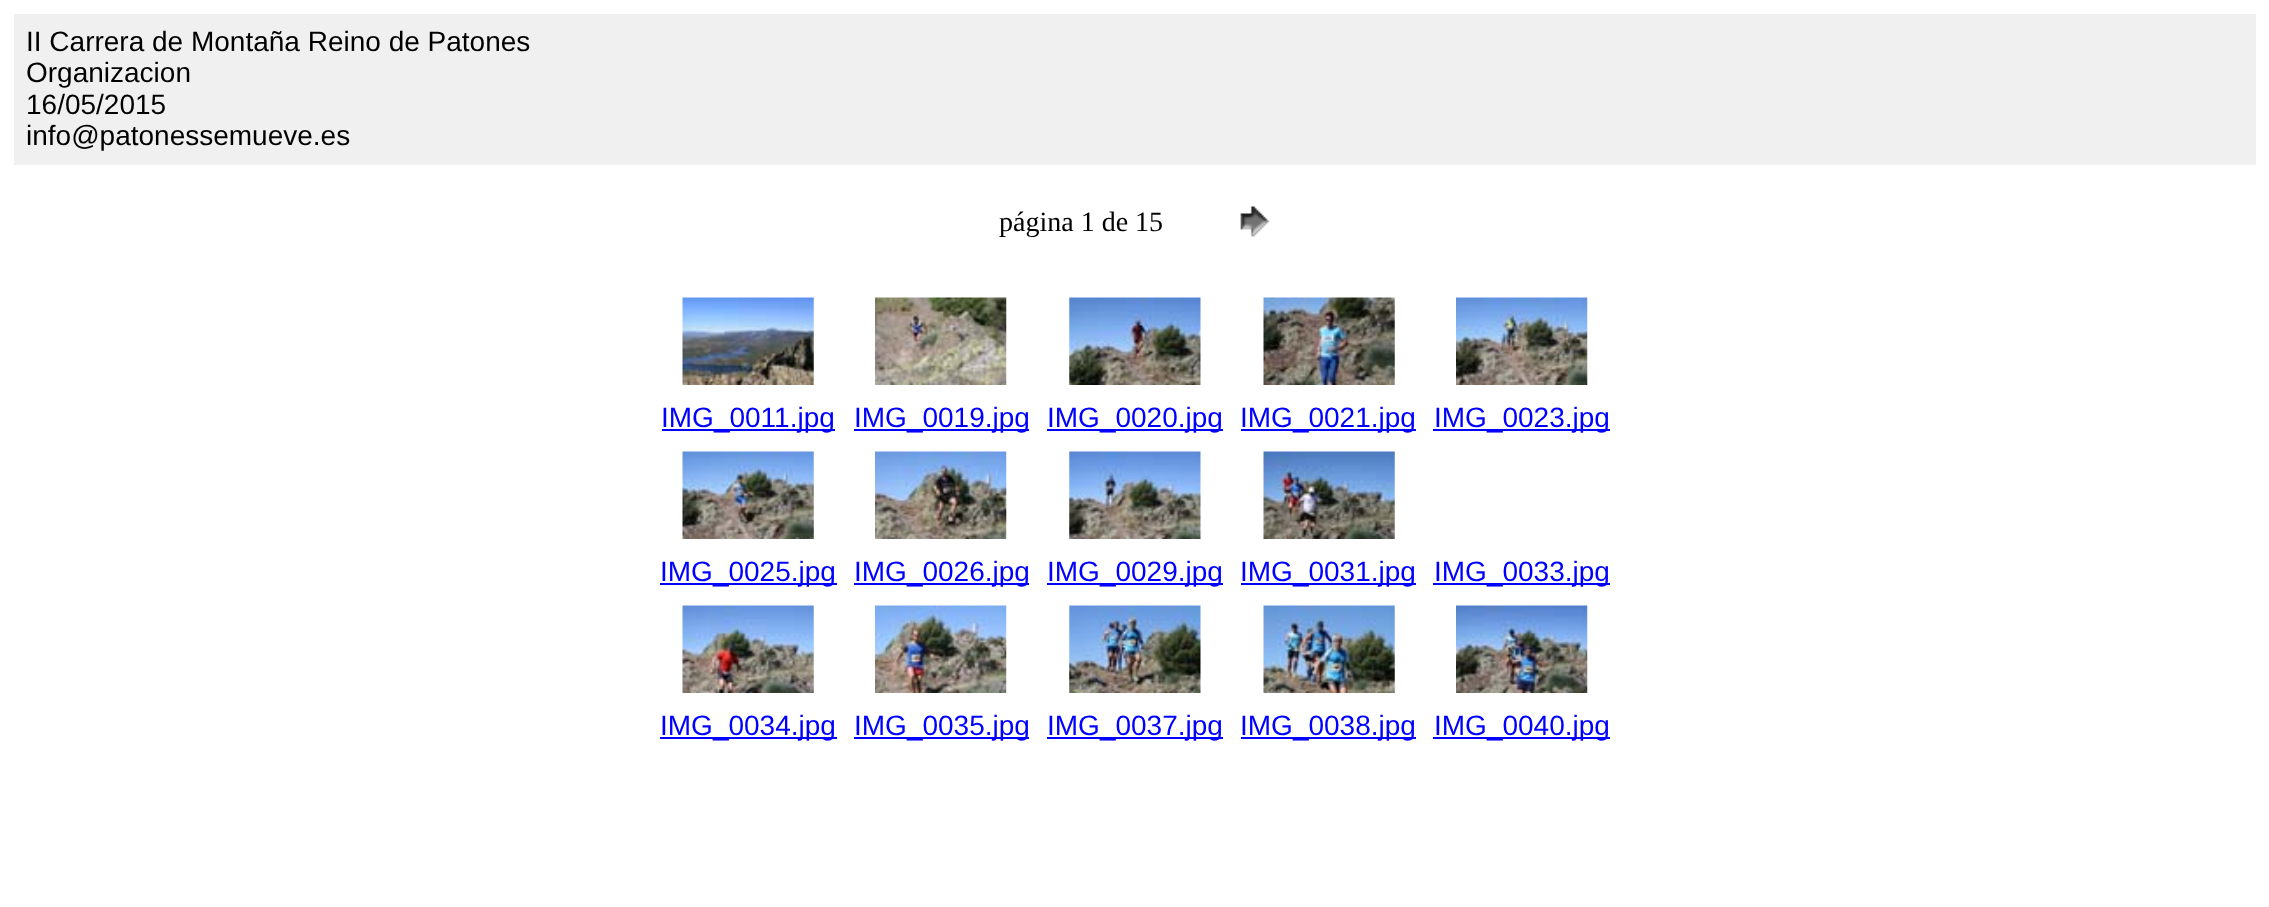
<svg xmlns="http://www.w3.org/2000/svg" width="2269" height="907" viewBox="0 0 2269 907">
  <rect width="100%" height="100%" fill="rgb(255,255,255)"/>
  <rect x="14" y="14" width="2242" height="151" fill="rgb(240,240,240)"/>
  <g font-family="Liberation Sans" font-size="28" fill="rgb(0,0,0)">
    <text>
      <tspan x="26" y="51">II Carrera de Montaña Reino de Patones</tspan>
      <tspan x="26" y="82">Organizacion</tspan>
      <tspan x="26" y="114">16/05/2015</tspan>
      <tspan x="26" y="145">info@patonessemueve.es</tspan>
    </text>
  </g>
  <text x="999" y="231" font-family="Liberation Serif" font-size="28" fill="rgb(0,0,0)">página 1 de 15</text>
  <image x="1240" y="206" width="30" height="31" href="pic1.png"/>
  <image x="682" y="297" width="132" height="88" href="pic2.png"/>
  <image x="875" y="297" width="132" height="88" href="pic3.png"/>
  <image x="1069" y="297" width="132" height="88" href="pic4.png"/>
  <image x="1263" y="297" width="132" height="88" href="pic5.png"/>
  <image x="1456" y="297" width="132" height="88" href="pic6.png"/>
  <rect x="662" y="429" width="173" height="2" fill="rgb(0,0,255)"/>
  <text x="661" y="427" font-family="Liberation Sans" font-size="28" fill="rgb(0,0,255)">IMG_0011.jpg</text>
  <rect x="854" y="429" width="175" height="2" fill="rgb(0,0,255)"/>
  <text x="854" y="427" font-family="Liberation Sans" font-size="28" fill="rgb(0,0,255)">IMG_0019.jpg</text>
  <rect x="1047" y="429" width="176" height="2" fill="rgb(0,0,255)"/>
  <text x="1047" y="427" font-family="Liberation Sans" font-size="28" fill="rgb(0,0,255)">IMG_0020.jpg</text>
  <rect x="1241" y="429" width="175" height="2" fill="rgb(0,0,255)"/>
  <text x="1240" y="427" font-family="Liberation Sans" font-size="28" fill="rgb(0,0,255)">IMG_0021.jpg</text>
  <rect x="1433" y="429" width="177" height="2" fill="rgb(0,0,255)"/>
  <text x="1434" y="427" font-family="Liberation Sans" font-size="28" fill="rgb(0,0,255)">IMG_0023.jpg</text>
  <image x="682" y="451" width="132" height="88" href="pic7.png"/>
  <image x="875" y="451" width="132" height="88" href="pic8.png"/>
  <image x="1069" y="451" width="132" height="88" href="pic9.png"/>
  <image x="1263" y="451" width="132" height="88" href="pic10.png"/>
  <rect x="660" y="583" width="177" height="2" fill="rgb(0,0,255)"/>
  <text x="660" y="581" font-family="Liberation Sans" font-size="28" fill="rgb(0,0,255)">IMG_0025.jpg</text>
  <rect x="854" y="583" width="175" height="2" fill="rgb(0,0,255)"/>
  <text x="854" y="581" font-family="Liberation Sans" font-size="28" fill="rgb(0,0,255)">IMG_0026.jpg</text>
  <rect x="1047" y="583" width="176" height="2" fill="rgb(0,0,255)"/>
  <text x="1047" y="581" font-family="Liberation Sans" font-size="28" fill="rgb(0,0,255)">IMG_0029.jpg</text>
  <rect x="1241" y="583" width="175" height="2" fill="rgb(0,0,255)"/>
  <text x="1240" y="581" font-family="Liberation Sans" font-size="28" fill="rgb(0,0,255)">IMG_0031.jpg</text>
  <rect x="1433" y="583" width="177" height="2" fill="rgb(0,0,255)"/>
  <text x="1434" y="581" font-family="Liberation Sans" font-size="28" fill="rgb(0,0,255)">IMG_0033.jpg</text>
  <image x="682" y="605" width="132" height="88" href="pic11.png"/>
  <image x="875" y="605" width="132" height="88" href="pic12.png"/>
  <image x="1069" y="605" width="132" height="88" href="pic13.png"/>
  <image x="1263" y="605" width="132" height="88" href="pic14.png"/>
  <image x="1456" y="605" width="132" height="88" href="pic15.png"/>
  <rect x="660" y="737" width="177" height="2" fill="rgb(0,0,255)"/>
  <text x="660" y="735" font-family="Liberation Sans" font-size="28" fill="rgb(0,0,255)">IMG_0034.jpg</text>
  <rect x="854" y="737" width="175" height="2" fill="rgb(0,0,255)"/>
  <text x="854" y="735" font-family="Liberation Sans" font-size="28" fill="rgb(0,0,255)">IMG_0035.jpg</text>
  <rect x="1047" y="737" width="176" height="2" fill="rgb(0,0,255)"/>
  <text x="1047" y="735" font-family="Liberation Sans" font-size="28" fill="rgb(0,0,255)">IMG_0037.jpg</text>
  <rect x="1241" y="737" width="175" height="2" fill="rgb(0,0,255)"/>
  <text x="1240" y="735" font-family="Liberation Sans" font-size="28" fill="rgb(0,0,255)">IMG_0038.jpg</text>
  <rect x="1433" y="737" width="177" height="2" fill="rgb(0,0,255)"/>
  <text x="1434" y="735" font-family="Liberation Sans" font-size="28" fill="rgb(0,0,255)">IMG_0040.jpg</text>
</svg>
